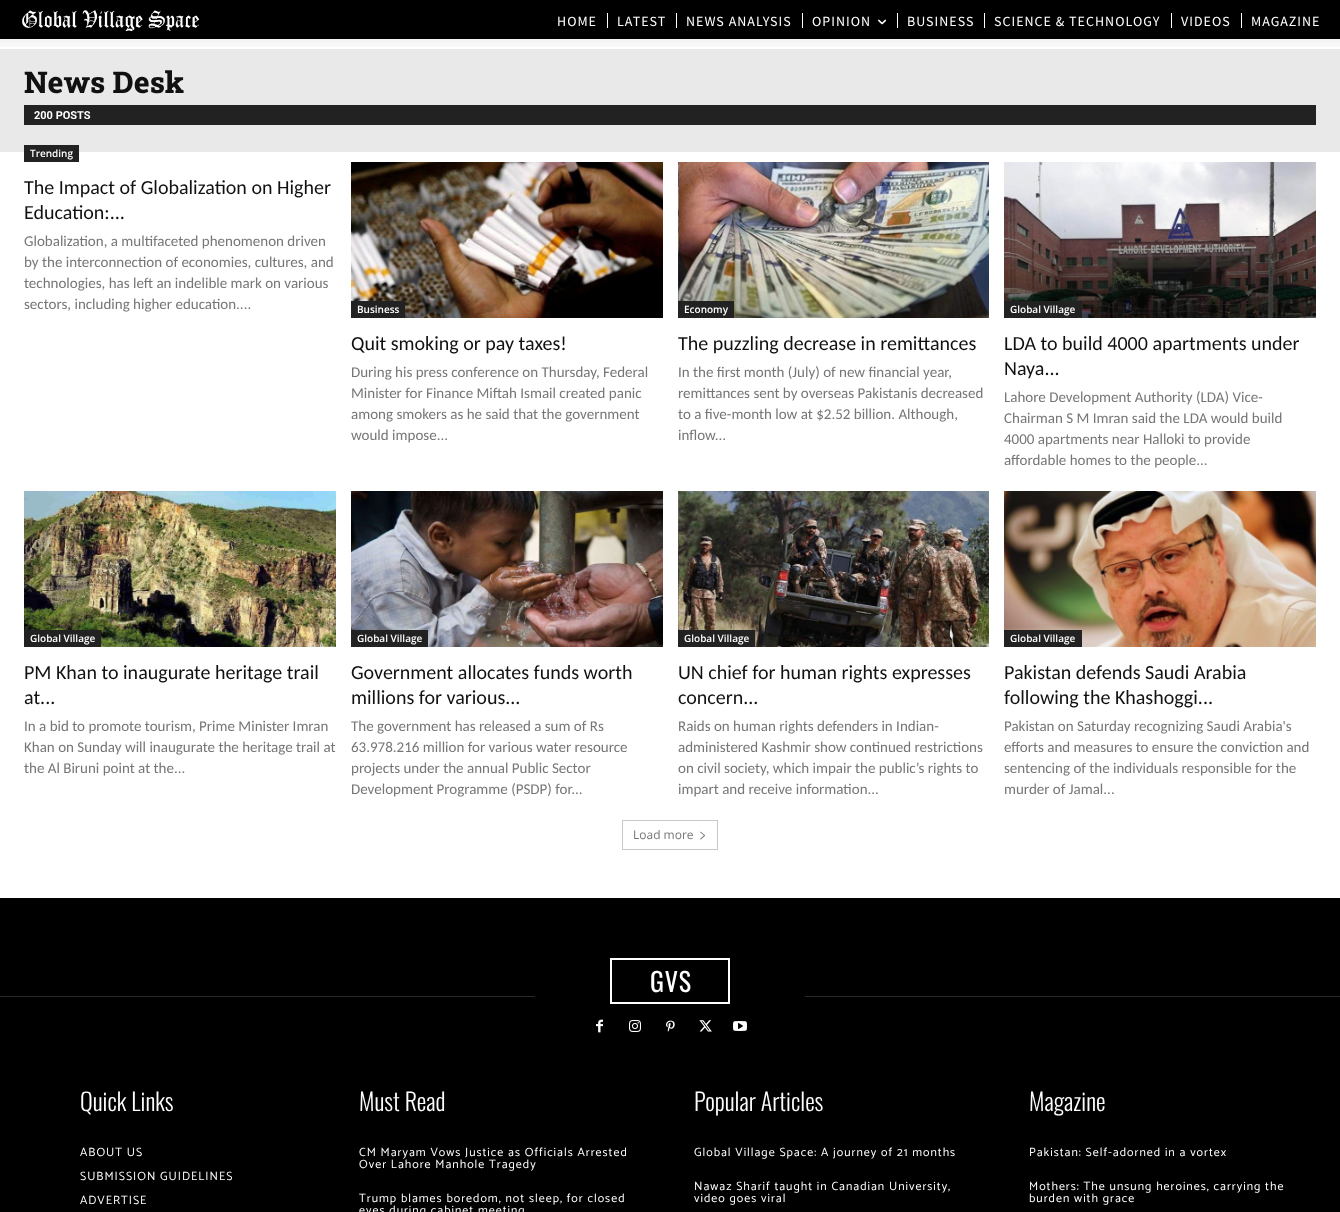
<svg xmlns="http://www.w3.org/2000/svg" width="1340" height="1212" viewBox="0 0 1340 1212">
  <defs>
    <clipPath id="clip1"><rect x="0" y="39" width="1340" height="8"/></clipPath>
  </defs>
  <rect width="100%" height="100%" fill="rgb(255,255,255)"/>
  <rect x="0" y="0" width="1340" height="39" fill="rgb(0,0,0)"/>
  <rect x="0" y="49" width="1340" height="103" fill="rgb(233,233,233)"/>
  <g clip-path="url(#clip1)">
    <rect x="-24" y="0" width="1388" height="39" fill="rgba(0,0,0,0.1)" filter="blur(10px)"/>
  </g>
  <image x="22" y="10" width="178" height="22" href="pic1.png"/>
  <text x="557" y="26" font-family="Source Sans Pro" font-size="14" letter-spacing="1" fill="rgb(255,255,255)">HOME</text>
  <rect x="607" y="13" width="1" height="15" fill="rgb(255,255,255)"/>
  <text x="617" y="26" font-family="Source Sans Pro" font-size="14" letter-spacing="1" fill="rgb(255,255,255)">LATEST</text>
  <rect x="676" y="13" width="1" height="15" fill="rgb(255,255,255)"/>
  <text x="686" y="26" font-family="Source Sans Pro" font-size="14" letter-spacing="1" fill="rgb(255,255,255)">NEWS ANALYSIS</text>
  <rect x="802" y="13" width="1" height="15" fill="rgb(255,255,255)"/>
  <text x="812" y="26" font-family="Source Sans Pro" font-size="14" letter-spacing="1" fill="rgb(255,255,255)">OPINION</text>
  <image x="878" y="19" width="9" height="6" href="pic2.png"/>
  <rect x="897" y="13" width="1" height="15" fill="rgb(255,255,255)"/>
  <text x="907" y="26" font-family="Source Sans Pro" font-size="14" letter-spacing="1" fill="rgb(255,255,255)">BUSINESS</text>
  <rect x="984" y="13" width="1" height="15" fill="rgb(255,255,255)"/>
  <text x="994" y="26" font-family="Source Sans Pro" font-size="14" letter-spacing="1" fill="rgb(255,255,255)">SCIENCE &amp; TECHNOLOGY</text>
  <rect x="1171" y="13" width="1" height="15" fill="rgb(255,255,255)"/>
  <text x="1181" y="26" font-family="Source Sans Pro" font-size="14" letter-spacing="1" fill="rgb(255,255,255)">VIDEOS</text>
  <rect x="1241" y="13" width="1" height="15" fill="rgb(255,255,255)"/>
  <text x="1251" y="26" font-family="Source Sans Pro" font-size="14" letter-spacing="1" fill="rgb(255,255,255)">MAGAZINE</text>
  <text x="24" y="93" font-family="Roboto Slab" font-size="30" font-weight="800" fill="rgb(17,17,17)">News Desk</text>
  <rect x="24" y="105" width="1292" height="20" fill="rgb(34,34,34)"/>
  <text x="34" y="119" font-family="Roboto" font-size="11" font-weight="bold" fill="rgb(255,255,255)">200 POSTS</text>
  <rect x="24" y="145" width="55" height="17" fill="rgb(34,34,34)"/>
  <text x="30" y="157" font-family="Open Sans" font-size="10" font-weight="600" fill="rgb(255,255,255)">Trending</text>
  <g font-family="Carlito" font-size="20" fill="rgb(17,17,17)">
    <text>
      <tspan x="24" y="194">The Impact of Globalization on Higher</tspan>
      <tspan x="24" y="219">Education:...</tspan>
    </text>
  </g>
  <g font-family="Carlito" font-size="15" fill="rgb(118,118,118)">
    <text>
      <tspan x="24" y="246">Globalization, a multifaceted phenomenon driven</tspan>
      <tspan x="24" y="267">by the interconnection of economies, cultures, and</tspan>
      <tspan x="24" y="288">technologies, has left an indelible mark on various</tspan>
      <tspan x="24" y="309">sectors, including higher education....</tspan>
    </text>
  </g>
  <image x="351" y="162" width="312" height="156" href="pic3.png"/>
  <rect x="351" y="301" width="54" height="17" fill="rgb(34,34,34)"/>
  <text x="357" y="313" font-family="Open Sans" font-size="10" font-weight="600" fill="rgb(255,255,255)">Business</text>
  <text x="351" y="350" font-family="Carlito" font-size="20" fill="rgb(17,17,17)">Quit smoking or pay taxes!</text>
  <g font-family="Carlito" font-size="15" fill="rgb(118,118,118)">
    <text>
      <tspan x="351" y="377">During his press conference on Thursday, Federal</tspan>
      <tspan x="351" y="398">Minister for Finance Miftah Ismail created panic</tspan>
      <tspan x="351" y="419">among smokers as he said that the government</tspan>
      <tspan x="351" y="440">would impose...</tspan>
    </text>
  </g>
  <image x="678" y="162" width="311" height="156" href="pic4.png"/>
  <rect x="678" y="301" width="56" height="17" fill="rgb(34,34,34)"/>
  <text x="684" y="313" font-family="Open Sans" font-size="10" font-weight="600" fill="rgb(255,255,255)">Economy</text>
  <text x="678" y="350" font-family="Carlito" font-size="20" fill="rgb(17,17,17)">The puzzling decrease in remittances</text>
  <g font-family="Carlito" font-size="15" fill="rgb(118,118,118)">
    <text>
      <tspan x="678" y="377">In the first month (July) of new financial year,</tspan>
      <tspan x="678" y="398">remittances sent by overseas Pakistanis decreased</tspan>
      <tspan x="678" y="419">to a five-month low at $2.52 billion. Although,</tspan>
      <tspan x="678" y="440">inflow...</tspan>
    </text>
  </g>
  <image x="1004" y="162" width="312" height="156" href="pic5.png"/>
  <rect x="1004" y="301" width="78" height="17" fill="rgb(34,34,34)"/>
  <text x="1010" y="313" font-family="Open Sans" font-size="10" font-weight="600" fill="rgb(255,255,255)">Global Village</text>
  <g font-family="Carlito" font-size="20" fill="rgb(17,17,17)">
    <text>
      <tspan x="1004" y="350">LDA to build 4000 apartments under</tspan>
      <tspan x="1004" y="375">Naya...</tspan>
    </text>
  </g>
  <g font-family="Carlito" font-size="15" fill="rgb(118,118,118)">
    <text>
      <tspan x="1004" y="402">Lahore Development Authority (LDA) Vice-</tspan>
      <tspan x="1004" y="423">Chairman S M Imran said the LDA would build</tspan>
      <tspan x="1004" y="444">4000 apartments near Halloki to provide</tspan>
      <tspan x="1004" y="465">affordable homes to the people...</tspan>
    </text>
  </g>
  <image x="24" y="491" width="312" height="156" href="pic6.png"/>
  <rect x="24" y="630" width="77" height="17" fill="rgb(34,34,34)"/>
  <text x="30" y="642" font-family="Open Sans" font-size="10" font-weight="600" fill="rgb(255,255,255)">Global Village</text>
  <g font-family="Carlito" font-size="20" fill="rgb(17,17,17)">
    <text>
      <tspan x="24" y="679">PM Khan to inaugurate heritage trail</tspan>
      <tspan x="24" y="704">at...</tspan>
    </text>
  </g>
  <g font-family="Carlito" font-size="15" fill="rgb(118,118,118)">
    <text>
      <tspan x="24" y="731">In a bid to promote tourism, Prime Minister Imran</tspan>
      <tspan x="24" y="752">Khan on Sunday will inaugurate the heritage trail at</tspan>
      <tspan x="24" y="773">the Al Biruni point at the...</tspan>
    </text>
  </g>
  <image x="351" y="491" width="312" height="156" href="pic7.png"/>
  <rect x="351" y="630" width="77" height="17" fill="rgb(34,34,34)"/>
  <text x="357" y="642" font-family="Open Sans" font-size="10" font-weight="600" fill="rgb(255,255,255)">Global Village</text>
  <g font-family="Carlito" font-size="20" fill="rgb(17,17,17)">
    <text>
      <tspan x="351" y="679">Government allocates funds worth</tspan>
      <tspan x="351" y="704">millions for various...</tspan>
    </text>
  </g>
  <g font-family="Carlito" font-size="15" fill="rgb(118,118,118)">
    <text>
      <tspan x="351" y="731">The government has released a sum of Rs</tspan>
      <tspan x="351" y="752">63.978.216 million for various water resource</tspan>
      <tspan x="351" y="773">projects under the annual Public Sector</tspan>
      <tspan x="351" y="794">Development Programme (PSDP) for...</tspan>
    </text>
  </g>
  <image x="678" y="491" width="311" height="156" href="pic8.png"/>
  <rect x="678" y="630" width="77" height="17" fill="rgb(34,34,34)"/>
  <text x="684" y="642" font-family="Open Sans" font-size="10" font-weight="600" fill="rgb(255,255,255)">Global Village</text>
  <g font-family="Carlito" font-size="20" fill="rgb(17,17,17)">
    <text>
      <tspan x="678" y="679">UN chief for human rights expresses</tspan>
      <tspan x="678" y="704">concern...</tspan>
    </text>
  </g>
  <g font-family="Carlito" font-size="15" fill="rgb(118,118,118)">
    <text>
      <tspan x="678" y="731">Raids on human rights defenders in Indian-</tspan>
      <tspan x="678" y="752">administered Kashmir show continued restrictions</tspan>
      <tspan x="678" y="773">on civil society, which impair the public’s rights to</tspan>
      <tspan x="678" y="794">impart and receive information...</tspan>
    </text>
  </g>
  <image x="1004" y="491" width="312" height="156" href="pic9.png"/>
  <rect x="1004" y="630" width="78" height="17" fill="rgb(34,34,34)"/>
  <text x="1010" y="642" font-family="Open Sans" font-size="10" font-weight="600" fill="rgb(255,255,255)">Global Village</text>
  <g font-family="Carlito" font-size="20" fill="rgb(17,17,17)">
    <text>
      <tspan x="1004" y="679">Pakistan defends Saudi Arabia</tspan>
      <tspan x="1004" y="704">following the Khashoggi...</tspan>
    </text>
  </g>
  <g font-family="Carlito" font-size="15" fill="rgb(118,118,118)">
    <text>
      <tspan x="1004" y="731">Pakistan on Saturday recognizing Saudi Arabia's</tspan>
      <tspan x="1004" y="752">efforts and measures to ensure the conviction and</tspan>
      <tspan x="1004" y="773">sentencing of the individuals responsible for the</tspan>
      <tspan x="1004" y="794">murder of Jamal...</tspan>
    </text>
  </g>
  <rect x="622.5" y="820.5" width="95" height="29" fill="none" stroke="rgb(201,201,201)"/>
  <text x="633" y="839" font-family="Open Sans" font-size="12" fill="rgb(118,118,118)">Load more</text>
  <image x="700" y="831" width="6" height="9" href="pic10.png"/>
  <rect x="0" y="898" width="1340" height="314" fill="rgb(0,0,0)"/>
  <rect x="611" y="959" width="118" height="44" fill="none" stroke="rgb(255,255,255)" stroke-width="2"/>
  <text x="650" y="992" font-family="Oswald" font-size="26" letter-spacing="1" fill="rgb(255,255,255)">GVS</text>
  <image x="596" y="1019" width="7" height="14" href="pic11.png"/>
  <image x="629" y="1020" width="12" height="12" href="pic12.png"/>
  <image x="666" y="1020" width="9" height="12" href="pic13.png"/>
  <image x="699" y="1020" width="13" height="12" href="pic14.png"/>
  <image x="733" y="1021" width="14" height="10" href="pic15.png"/>
  <rect x="0" y="996" width="535" height="1" fill="rgb(41,41,41)"/>
  <rect x="805" y="996" width="535" height="1" fill="rgb(41,41,41)"/>
  <text x="80" y="1111" font-family="Oswald" font-size="24" font-weight="300" fill="rgb(255,255,255)">Quick Links</text>
  <g font-family="Catamaran" font-size="12" letter-spacing="1" fill="rgb(255,255,255)">
    <text x="80" y="1156">ABOUT US</text>
    <text x="80" y="1180">SUBMISSION GUIDELINES</text>
    <text x="80" y="1204">ADVERTISE</text>
  </g>
  <text x="359" y="1111" font-family="Oswald" font-size="24" font-weight="300" fill="rgb(255,255,255)">Must Read</text>
  <g font-family="Catamaran" font-size="12" letter-spacing="1" fill="rgb(255,255,255)">
    <text>
      <tspan x="359" y="1156">CM Maryam Vows Justice as Officials Arrested</tspan>
      <tspan x="359" y="1168">Over Lahore Manhole Tragedy</tspan>
    </text>
    <text>
      <tspan x="359" y="1202">Trump blames boredom, not sleep, for closed</tspan>
      <tspan x="359" y="1214">eyes during cabinet meeting</tspan>
    </text>
  </g>
  <text x="694" y="1111" font-family="Oswald" font-size="24" font-weight="300" fill="rgb(255,255,255)">Popular Articles</text>
  <g font-family="Catamaran" font-size="12" letter-spacing="1" fill="rgb(255,255,255)">
    <text x="694" y="1156">Global Village Space: A journey of 21 months</text>
    <text>
      <tspan x="694" y="1190">Nawaz Sharif taught in Canadian University,</tspan>
      <tspan x="694" y="1202">video goes viral</tspan>
    </text>
  </g>
  <text x="1029" y="1111" font-family="Oswald" font-size="24" font-weight="300" fill="rgb(255,255,255)">Magazine</text>
  <g font-family="Catamaran" font-size="12" letter-spacing="1" fill="rgb(255,255,255)">
    <text x="1029" y="1156">Pakistan: Self-adorned in a vortex</text>
    <text>
      <tspan x="1029" y="1190">Mothers: The unsung heroines, carrying the</tspan>
      <tspan x="1029" y="1202">burden with grace</tspan>
    </text>
  </g>
</svg>
